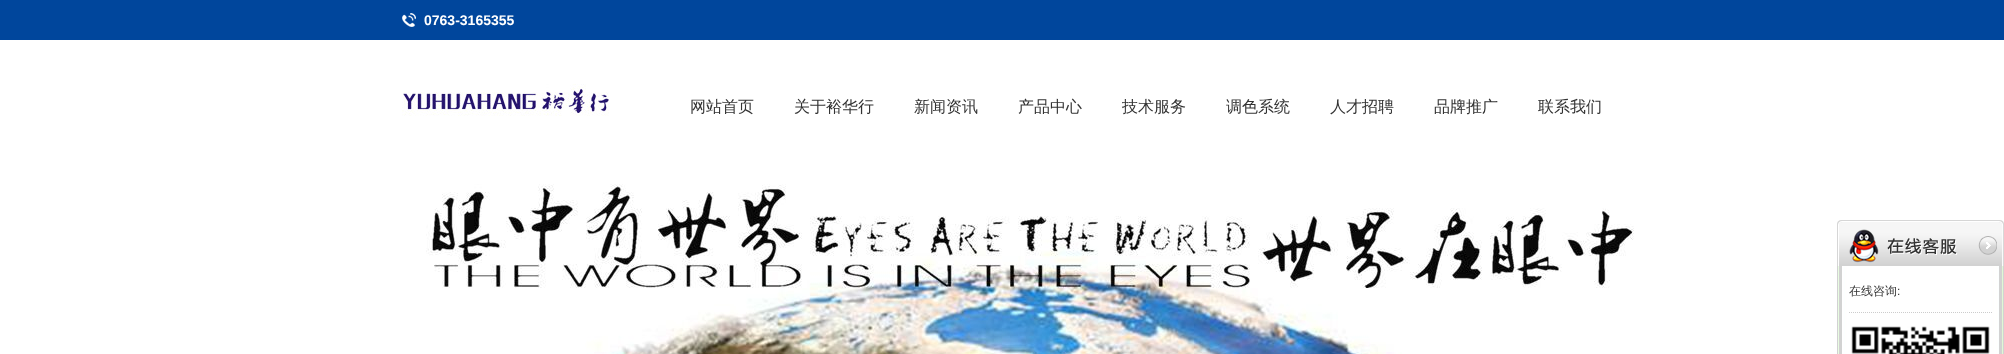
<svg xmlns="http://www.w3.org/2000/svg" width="2004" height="354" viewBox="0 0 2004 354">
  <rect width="100%" height="100%" fill="rgb(255,255,255)"/>
  <rect x="0" y="0" width="2004" height="40" fill="rgb(0,70,156)"/>
  <image x="402" y="13" width="14" height="14" href="pic1.png"/>
  <text x="424" y="25" font-family="Liberation Sans" font-size="14" font-weight="bold" fill="rgb(255,255,255)">0763-3165355</text>
  <image x="402" y="84" width="207" height="32" href="pic2.png"/>
  <g font-family="WenQuanYi Zen Hei" font-size="16" font-weight="500" fill="rgb(51,51,51)">
    <text x="690" y="112">网站首页</text>
    <text x="794" y="112">关于裕华行</text>
    <text x="914" y="112">新闻资讯</text>
    <text x="1018" y="112">产品中心</text>
    <text x="1122" y="112">技术服务</text>
    <text x="1226" y="112">调色系统</text>
    <text x="1330" y="112">人才招聘</text>
    <text x="1434" y="112">品牌推广</text>
    <text x="1538" y="112">联系我们</text>
  </g>
  <image x="426" y="184" width="1208" height="170" href="pic3.png"/>
  <image x="1837" y="220" width="167" height="46" href="pic4.png"/>
  <image x="1978" y="236" width="19" height="19" href="pic5.png"/>
  <image x="1837" y="266" width="167" height="88" href="pic6.png"/>
  <text x="1849" y="295" font-family="WenQuanYi Zen Hei" font-size="12" font-weight="500" fill="rgb(51,51,51)">在线咨询</text>
  <text x="1897" y="295" font-family="Liberation Sans" font-size="12" fill="rgb(51,51,51)">:</text>
  <path d="M1849 312.5H1992" fill="none" stroke="rgb(204,204,204)" stroke-dasharray="1 1"/>
  <image x="1851" y="326" width="139" height="28" href="pic7.png"/>
</svg>
